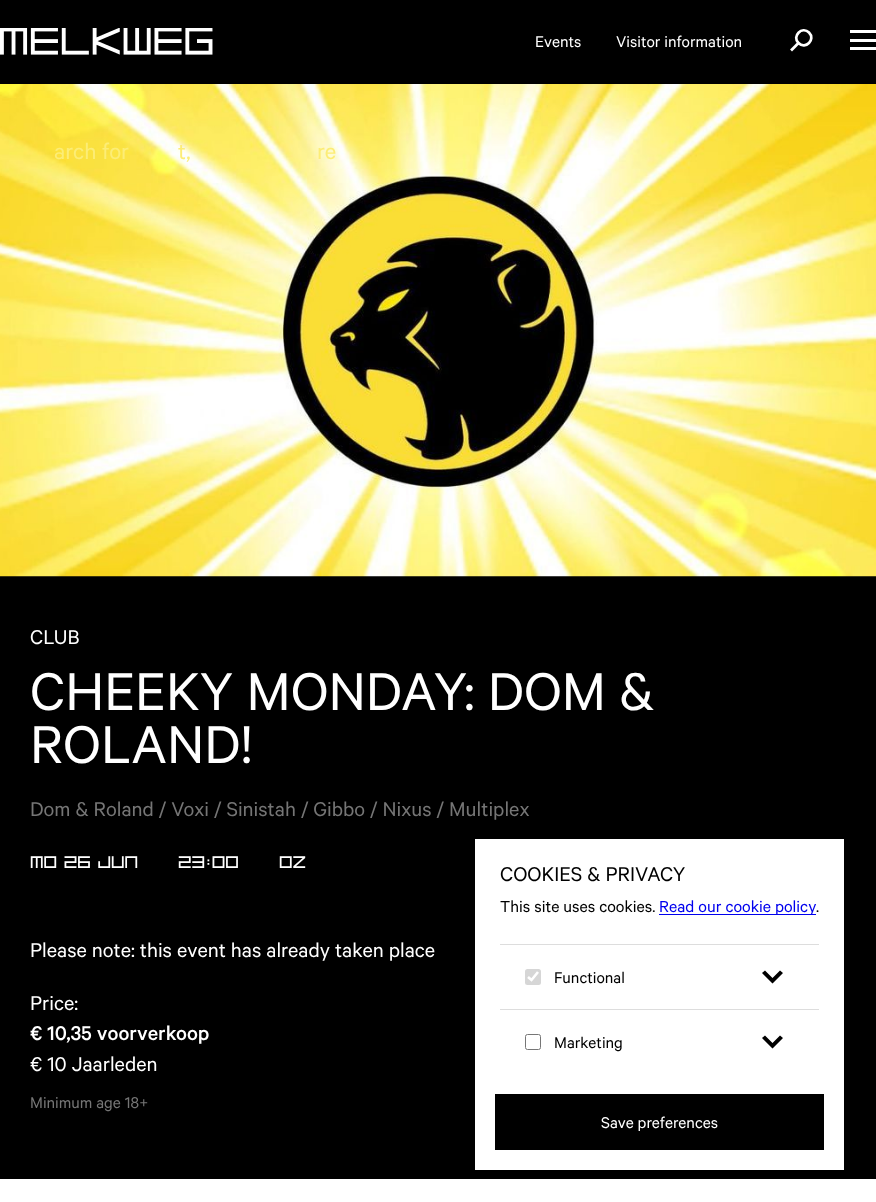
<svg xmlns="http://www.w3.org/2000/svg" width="876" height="1202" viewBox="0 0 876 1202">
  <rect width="100%" height="100%" fill="rgb(255,255,255)"/>
  <rect x="0" y="0" width="876" height="84" fill="rgb(0,0,0)"/>
  <image x="0" y="28" width="213" height="27" href="pic1.png"/>
  <g font-family="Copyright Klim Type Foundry" font-size="17.5" fill="rgb(255,255,255)">
    <text x="535" y="47">Events</text>
    <text x="616" y="47">Visitor information</text>
  </g>
  <path d="M809 32.5C816 39.5 805.5 50 798.5 43C791.5 36.5 802 25.5 809 32.5Z" fill="none" stroke="rgb(255,255,255)" stroke-width="2.7"/>
  <path d="M798 43.5L792 49.5" fill="none" stroke="rgb(255,255,255)" stroke-width="2.7" stroke-linecap="square"/>
  <rect x="850" y="30" width="26" height="3" fill="rgb(255,255,255)"/>
  <rect x="850" y="39" width="26" height="3" fill="rgb(255,255,255)"/>
  <rect x="850" y="47" width="26" height="3" fill="rgb(255,255,255)"/>
  <rect x="0" y="576" width="876" height="603" fill="rgb(0,0,0)"/>
  <image x="0" y="84" width="876" height="493" href="pic2.png"/>
  <g font-family="Copyright Klim Type Foundry" font-size="25" fill="rgb(252,237,118)">
    <text x="54" y="159">arch for</text>
    <text x="178" y="159">t,</text>
    <text x="317" y="159">re</text>
  </g>
  <text x="30" y="644" font-family="Copyright Klim Type Foundry" font-size="22.5" fill="rgb(255,255,255)">CLUB</text>
  <g font-family="Copyright Klim Type Foundry" font-size="60" fill="rgb(255,255,255)">
    <text>
      <tspan x="30" y="710">CHEEKY MONDAY: DOM &amp;</tspan>
      <tspan x="30" y="763">ROLAND!</tspan>
    </text>
  </g>
  <text x="30" y="816" font-family="Copyright Klim Type Foundry" font-size="22.5" fill="rgb(117,117,117)">Dom &amp; Roland / Voxi / Sinistah / Gibbo / Nixus / Multiplex</text>
  <g font-family="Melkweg" font-size="22.5" fill="rgb(255,255,255)">
    <text x="30" y="868">MO 26 JUN</text>
    <text x="178" y="868">23:00</text>
    <text x="279" y="868">OZ</text>
  </g>
  <g font-family="Copyright Klim Type Foundry" font-size="22.5" fill="rgb(255,255,255)">
    <text x="30" y="957">Please note: this event has already taken place</text>
    <text x="30" y="1010">Price:</text>
  </g>
  <text x="30" y="1040" font-family="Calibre" font-size="22.5" font-weight="500" fill="rgb(255,255,255)">€ 10,35 voorverkoop</text>
  <text x="30" y="1071" font-family="Copyright Klim Type Foundry" font-size="22.5" fill="rgb(255,255,255)">€ 10 Jaarleden</text>
  <text x="30" y="1108" font-family="Copyright Klim Type Foundry" font-size="17.5" fill="rgb(117,117,117)">Minimum age 18+</text>
  <rect x="475" y="839" width="369" height="331" fill="rgb(255,255,255)"/>
  <text x="500" y="881" font-family="Copyright Klim Type Foundry" font-size="22.5" fill="rgb(0,0,0)">COOKIES &amp; PRIVACY</text>
  <text x="500" y="912" font-family="Copyright Klim Type Foundry" font-size="18" fill="rgb(0,0,0)">This site uses cookies.</text>
  <rect x="659" y="914" width="157" height="1" fill="rgb(0,0,238)"/>
  <text x="659" y="912" font-family="Copyright Klim Type Foundry" font-size="18" fill="rgb(0,0,238)">Read our cookie policy</text>
  <text x="816" y="912" font-family="Copyright Klim Type Foundry" font-size="18" fill="rgb(0,0,0)">.</text>
  <rect x="500" y="944" width="319" height="1" fill="rgb(221,221,221)"/>
  <rect x="525" y="969" width="16" height="16" rx="2.5" fill="rgb(214,214,214)"/>
  <path d="M528 977L531.5 980L538 972" fill="none" stroke="rgb(255,255,255)" stroke-width="2.6"/>
  <text x="554" y="983" font-family="Copyright Klim Type Foundry" font-size="17.5" fill="rgb(0,0,0)">Functional</text>
  <path d="M780 970.5L783 973L772.5 983.5L762 973L765 970.5L772.5 978Z" fill="rgb(0,0,0)"/>
  <rect x="500" y="1009" width="319" height="1" fill="rgb(221,221,221)"/>
  <rect x="525.5" y="1034.5" width="15" height="15" rx="2" fill="none" stroke="rgb(118,118,118)"/>
  <text x="554" y="1048" font-family="Copyright Klim Type Foundry" font-size="17.5" fill="rgb(0,0,0)">Marketing</text>
  <path d="M780 1035.5L783 1038L772.5 1048.5L762 1038L765 1035.5L772.5 1043Z" fill="rgb(0,0,0)"/>
  <rect x="495" y="1094" width="329" height="56" fill="rgb(0,0,0)"/>
  <text x="601" y="1128" font-family="Copyright Klim Type Foundry" font-size="17.5" fill="rgb(255,255,255)">Save preferences</text>
</svg>
